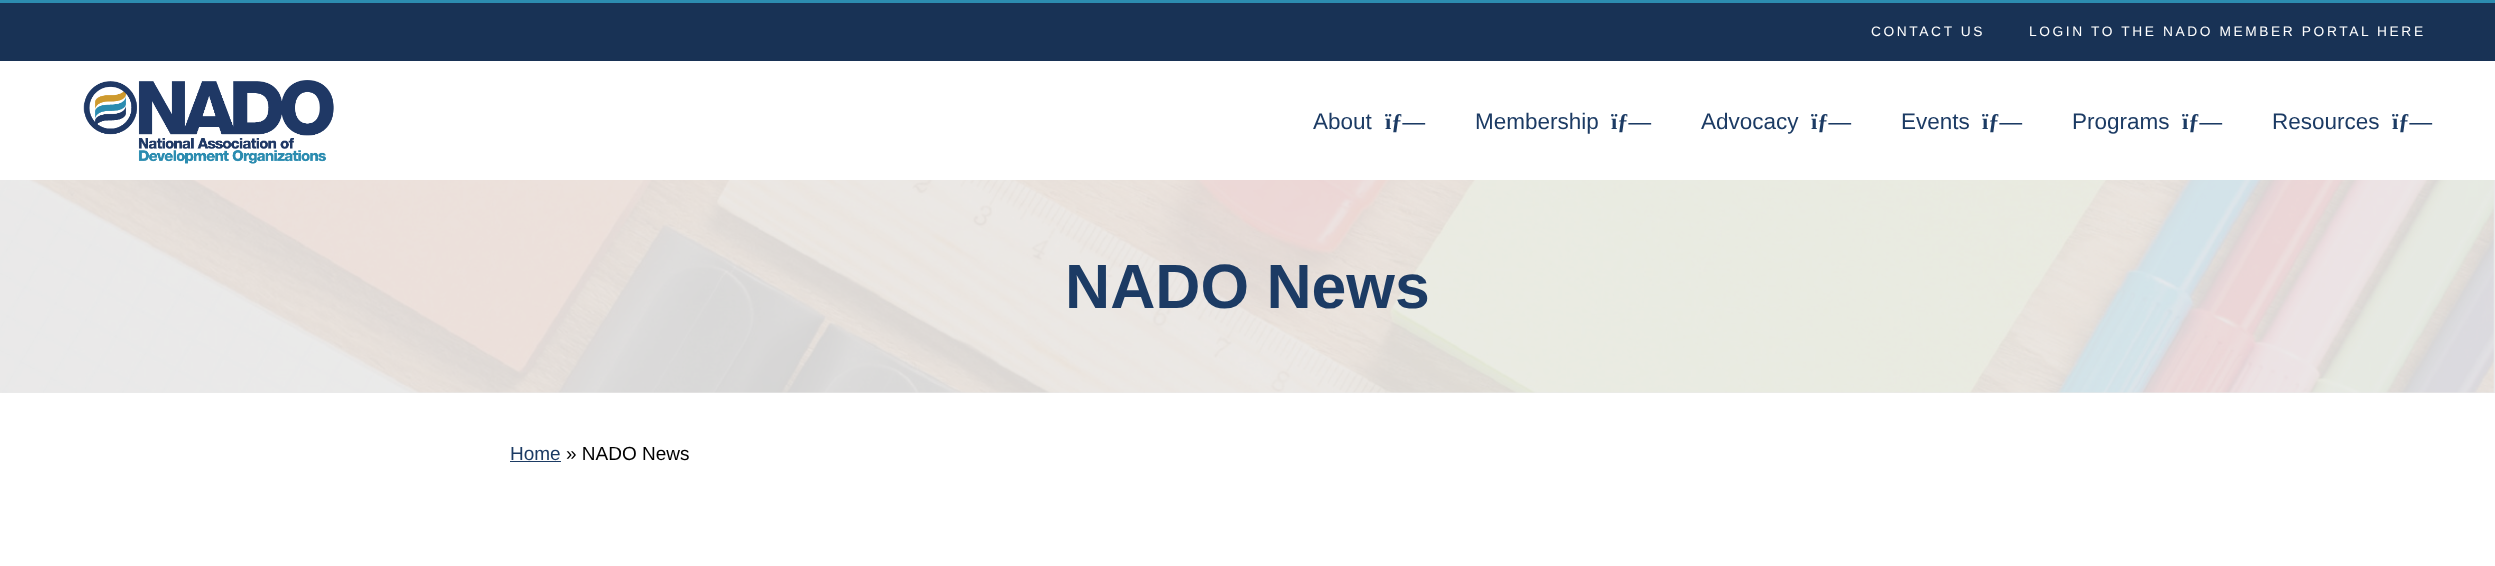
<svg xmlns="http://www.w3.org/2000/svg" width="2495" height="566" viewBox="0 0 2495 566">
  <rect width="100%" height="100%" fill="rgb(255,255,255)"/>
  <rect x="0" y="0" width="2495" height="3" fill="rgb(44,140,176)"/>
  <rect x="0" y="3" width="2495" height="58" fill="rgb(24,50,85)"/>
  <g font-family="Liberation Sans" font-size="13.75" letter-spacing="2.6" fill="rgb(255,255,255)">
    <text x="1871" y="36">CONTACT US</text>
    <text x="2029" y="36">LOGIN TO THE NADO MEMBER PORTAL HERE</text>
  </g>
  <image x="83" y="80" width="251" height="84" href="pic1.png"/>
  <text x="1313" y="129" font-family="Liberation Sans" font-size="22.5" fill="rgb(28,59,100)">About</text>
  <text x="1385" y="129" font-family="Liberation Serif" font-size="22.5" font-weight="bold" fill="rgb(28,59,100)">ïƒ—</text>
  <text x="1475" y="129" font-family="Liberation Sans" font-size="22.5" fill="rgb(28,59,100)">Membership</text>
  <text x="1611" y="129" font-family="Liberation Serif" font-size="22.5" font-weight="bold" fill="rgb(28,59,100)">ïƒ—</text>
  <text x="1701" y="129" font-family="Liberation Sans" font-size="22.5" fill="rgb(28,59,100)">Advocacy</text>
  <text x="1811" y="129" font-family="Liberation Serif" font-size="22.5" font-weight="bold" fill="rgb(28,59,100)">ïƒ—</text>
  <text x="1901" y="129" font-family="Liberation Sans" font-size="22.5" fill="rgb(28,59,100)">Events</text>
  <text x="1982" y="129" font-family="Liberation Serif" font-size="22.5" font-weight="bold" fill="rgb(28,59,100)">ïƒ—</text>
  <text x="2072" y="129" font-family="Liberation Sans" font-size="22.5" fill="rgb(28,59,100)">Programs</text>
  <text x="2182" y="129" font-family="Liberation Serif" font-size="22.5" font-weight="bold" fill="rgb(28,59,100)">ïƒ—</text>
  <text x="2272" y="129" font-family="Liberation Sans" font-size="22.5" fill="rgb(28,59,100)">Resources</text>
  <text x="2392" y="129" font-family="Liberation Serif" font-size="22.5" font-weight="bold" fill="rgb(28,59,100)">ïƒ—</text>
  <rect x="0" y="180" width="2495" height="213" fill="rgb(234,234,234)"/>
  <image x="0" y="180" width="2494" height="213" href="pic2.png"/>
  <text x="1065" y="308" font-family="Liberation Sans" font-size="62.5" font-weight="bold" fill="rgb(28,59,100)">NADO News</text>
  <text x="510" y="460" font-family="Liberation Sans" font-size="19" fill="rgb(28,59,100)">Home</text>
  <rect x="510" y="461" width="51" height="1" fill="rgb(28,59,100)"/>
  <text x="566" y="460" font-family="Liberation Sans" font-size="19" fill="rgb(0,0,0)">» NADO News</text>
</svg>
